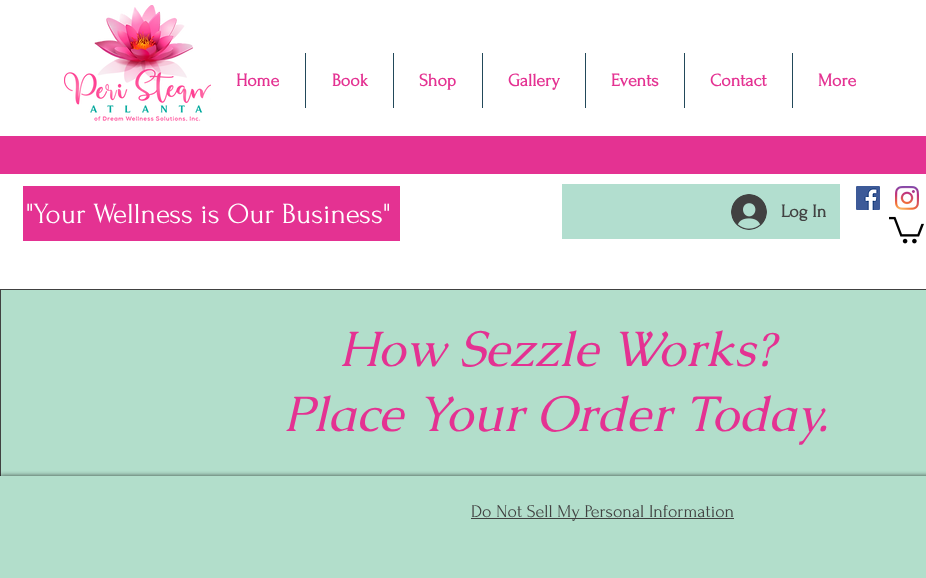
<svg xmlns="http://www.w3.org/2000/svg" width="926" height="578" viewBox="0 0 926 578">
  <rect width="100%" height="100%" fill="rgb(178,222,203)"/>
  <rect x="0" y="0" width="926" height="136" fill="rgb(255,255,255)"/>
  <image x="64" y="5" width="147" height="116" href="pic1.png"/>
  <text x="236" y="86" font-family="Forum" font-size="18" font-weight="bold" fill="rgb(228,50,146)">Home</text>
  <rect x="305" y="53" width="1" height="55" fill="rgb(34,73,90)"/>
  <text x="332" y="86" font-family="Forum" font-size="18" font-weight="bold" fill="rgb(228,50,146)">Book</text>
  <rect x="393" y="53" width="1" height="55" fill="rgb(34,73,90)"/>
  <text x="419" y="86" font-family="Forum" font-size="18" font-weight="bold" fill="rgb(228,50,146)">Shop</text>
  <rect x="482" y="53" width="1" height="55" fill="rgb(34,73,90)"/>
  <text x="508" y="86" font-family="Forum" font-size="18" font-weight="bold" fill="rgb(228,50,146)">Gallery</text>
  <rect x="585" y="53" width="1" height="55" fill="rgb(34,73,90)"/>
  <text x="611" y="86" font-family="Forum" font-size="18" font-weight="bold" fill="rgb(228,50,146)">Events</text>
  <rect x="684" y="53" width="1" height="55" fill="rgb(34,73,90)"/>
  <text x="710" y="86" font-family="Forum" font-size="18" font-weight="bold" fill="rgb(228,50,146)">Contact</text>
  <rect x="792" y="53" width="1" height="55" fill="rgb(34,73,90)"/>
  <text x="818" y="86" font-family="Forum" font-size="18" font-weight="bold" fill="rgb(228,50,146)">More</text>
  <rect x="0" y="174" width="926" height="115" fill="rgb(255,255,255)"/>
  <rect x="23" y="186" width="377" height="55" fill="rgb(228,50,146)"/>
  <text x="26" y="223" font-family="Forum" font-size="29" fill="rgb(255,255,255)">"Your Wellness is Our Business"</text>
  <image x="856" y="186" width="24" height="24" href="pic2.png"/>
  <image x="895" y="186" width="24" height="24" href="pic3.png"/>
  <rect x="562" y="184" width="278" height="55" fill="rgb(178,222,207)"/>
  <image x="731" y="194" width="36" height="36" href="pic4.png"/>
  <text x="781" y="217" font-family="Forum" font-size="18" font-weight="bold" fill="rgb(65,65,65)">Log In</text>
  <image x="889" y="216" width="35" height="28" href="pic5.png"/>
  <rect x="0" y="136" width="926" height="38" fill="rgb(228,50,146)"/>
  <rect x="0.5" y="289.5" width="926" height="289" fill="none" stroke="rgb(65,65,65)"/>
  <g font-family="Caudex" font-size="50" font-style="italic" fill="rgb(228,50,146)">
    <text x="338" y="366">How Sezzle Works?</text>
    <text x="283" y="431">Place Your Order Today.</text>
  </g>
  <rect x="0" y="476" width="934" height="102" fill="rgba(0,0,0,0.7)" filter="blur(2.5px)"/>
  <rect x="0" y="476" width="926" height="102" fill="rgb(178,222,203)"/>
  <rect x="471" y="518" width="263" height="1" fill="rgb(65,65,65)"/>
  <text x="471" y="517" font-family="Forum" font-size="18" fill="rgb(65,65,65)">Do Not Sell My Personal Information</text>
</svg>
